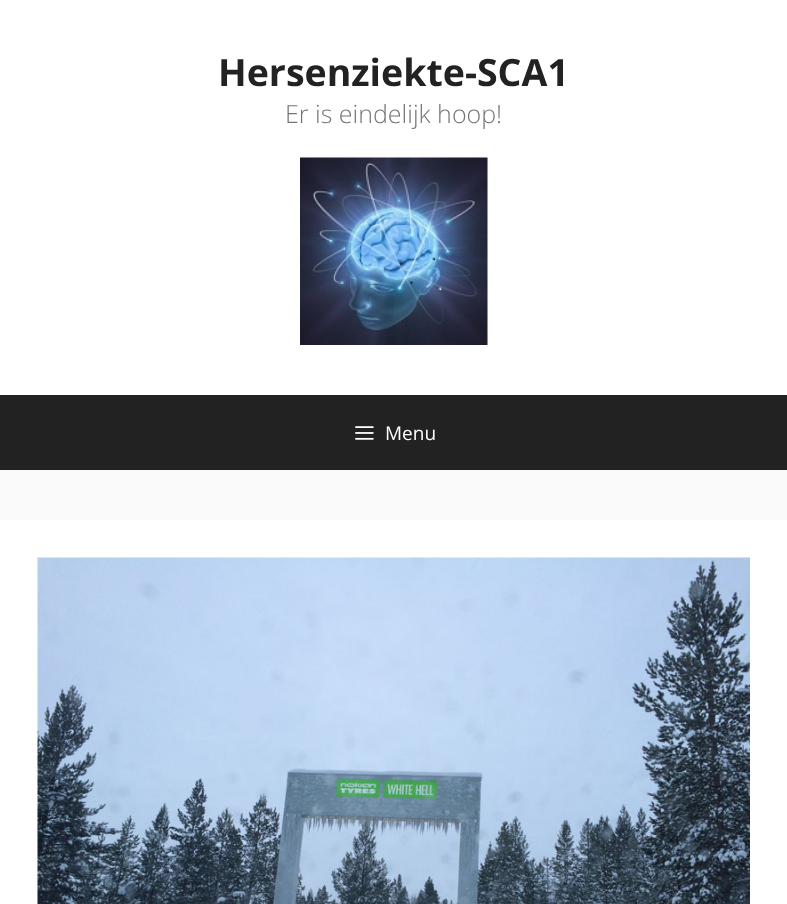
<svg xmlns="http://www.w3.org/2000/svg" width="787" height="904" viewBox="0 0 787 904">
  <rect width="100%" height="100%" fill="rgb(250,250,250)"/>
  <rect x="0" y="0" width="787" height="395" fill="rgb(255,255,255)"/>
  <text x="218" y="86" font-family="Open Sans" font-size="37.5" font-weight="bold" fill="rgb(34,34,34)">Hersenziekte-SCA1</text>
  <text x="285" y="123" font-family="Open Sans" font-size="25" font-weight="300" fill="rgb(117,117,117)">Er is eindelijk hoop!</text>
  <image x="300" y="157" width="188" height="188" href="pic1.png"/>
  <rect x="0" y="395" width="787" height="75" fill="rgb(34,34,34)"/>
  <image x="355" y="426" width="19" height="14" href="pic2.png"/>
  <text x="385" y="440" font-family="Open Sans" font-size="19" fill="rgb(255,255,255)">Menu</text>
  <rect x="0" y="520" width="787" height="384" fill="rgb(255,255,255)"/>
  <image x="37" y="557" width="713" height="347" href="pic3.png"/>
</svg>
